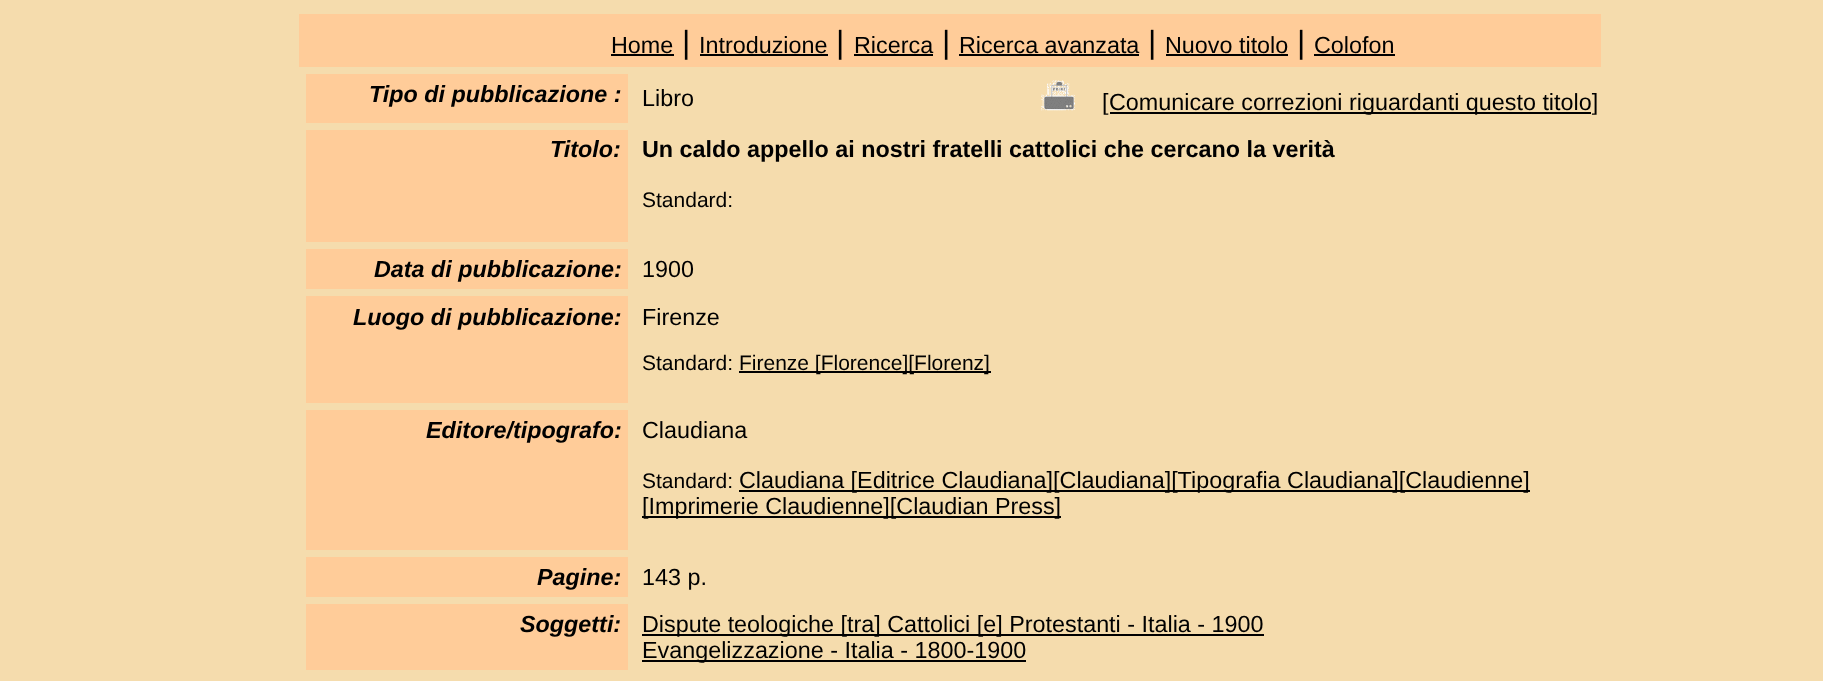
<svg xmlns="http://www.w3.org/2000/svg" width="1823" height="681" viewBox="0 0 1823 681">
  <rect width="100%" height="100%" fill="rgb(245,220,173)"/>
  <rect x="299" y="14" width="1302" height="53" fill="rgb(255,204,153)"/>
  <text x="611" y="53" font-family="Liberation Sans" font-size="23.35" fill="rgb(0,0,0)">Home</text>
  <rect x="611" y="54" width="63" height="2" fill="rgb(0,0,0)"/>
  <text x="682" y="53" font-family="Liberation Sans" font-size="32" fill="rgb(0,0,0)">|</text>
  <text x="699" y="53" font-family="Liberation Sans" font-size="23.35" fill="rgb(0,0,0)">Introduzione</text>
  <rect x="700" y="54" width="128" height="2" fill="rgb(0,0,0)"/>
  <text x="836" y="53" font-family="Liberation Sans" font-size="32" fill="rgb(0,0,0)">|</text>
  <text x="854" y="53" font-family="Liberation Sans" font-size="23.35" fill="rgb(0,0,0)">Ricerca</text>
  <rect x="854" y="54" width="79" height="2" fill="rgb(0,0,0)"/>
  <text x="942" y="53" font-family="Liberation Sans" font-size="32" fill="rgb(0,0,0)">|</text>
  <text x="959" y="53" font-family="Liberation Sans" font-size="23.35" fill="rgb(0,0,0)">Ricerca avanzata</text>
  <rect x="959" y="54" width="180" height="2" fill="rgb(0,0,0)"/>
  <text x="1148" y="53" font-family="Liberation Sans" font-size="32" fill="rgb(0,0,0)">|</text>
  <text x="1165" y="53" font-family="Liberation Sans" font-size="23.35" fill="rgb(0,0,0)">Nuovo titolo</text>
  <rect x="1166" y="54" width="122" height="2" fill="rgb(0,0,0)"/>
  <text x="1297" y="53" font-family="Liberation Sans" font-size="32" fill="rgb(0,0,0)">|</text>
  <text x="1314" y="53" font-family="Liberation Sans" font-size="23.35" fill="rgb(0,0,0)">Colofon</text>
  <rect x="1314" y="54" width="81" height="2" fill="rgb(0,0,0)"/>
  <rect x="306" y="74" width="322" height="49" fill="rgb(255,204,153)"/>
  <text x="369" y="102" font-family="Liberation Sans" font-size="23.35" font-weight="bold" font-style="italic" fill="rgb(0,0,0)">Tipo di pubblicazione :</text>
  <text x="642" y="106" font-family="Liberation Sans" font-size="23.35" fill="rgb(0,0,0)">Libro</text>
  <image x="1041" y="80" width="34" height="31" href="pic1.png"/>
  <text x="1102" y="110" font-family="Liberation Sans" font-size="23.35" fill="rgb(0,0,0)">[</text>
  <rect x="1110" y="112" width="481" height="2" fill="rgb(0,0,0)"/>
  <text x="1109" y="110" font-family="Liberation Sans" font-size="23.35" fill="rgb(0,0,0)">Comunicare correzioni riguardanti questo titolo]</text>
  <rect x="306" y="130" width="322" height="112" fill="rgb(255,204,153)"/>
  <text x="550" y="157" font-family="Liberation Sans" font-size="23.35" font-weight="bold" font-style="italic" fill="rgb(0,0,0)">Titolo:</text>
  <text x="642" y="157" font-family="Liberation Sans" font-size="23.35" font-weight="bold" fill="rgb(0,0,0)">Un caldo appello ai nostri fratelli cattolici che cercano la verità</text>
  <text x="642" y="207" font-family="Liberation Sans" font-size="21" fill="rgb(0,0,0)">Standard:</text>
  <rect x="306" y="249" width="322" height="40" fill="rgb(255,204,153)"/>
  <text x="374" y="277" font-family="Liberation Sans" font-size="23.35" font-weight="bold" font-style="italic" fill="rgb(0,0,0)">Data di pubblicazione:</text>
  <text x="642" y="277" font-family="Liberation Sans" font-size="23.35" fill="rgb(0,0,0)">1900</text>
  <rect x="306" y="296" width="322" height="107" fill="rgb(255,204,153)"/>
  <text x="353" y="325" font-family="Liberation Sans" font-size="23.35" font-weight="bold" font-style="italic" fill="rgb(0,0,0)">Luogo di pubblicazione:</text>
  <text x="642" y="325" font-family="Liberation Sans" font-size="23.35" fill="rgb(0,0,0)">Firenze</text>
  <text x="642" y="370" font-family="Liberation Sans" font-size="21" fill="rgb(0,0,0)">Standard:</text>
  <rect x="739" y="371" width="252" height="2" fill="rgb(0,0,0)"/>
  <text x="739" y="370" font-family="Liberation Sans" font-size="21" fill="rgb(0,0,0)">Firenze [Florence][Florenz]</text>
  <rect x="306" y="410" width="322" height="140" fill="rgb(255,204,153)"/>
  <text x="426" y="438" font-family="Liberation Sans" font-size="23.35" font-weight="bold" font-style="italic" fill="rgb(0,0,0)">Editore/tipografo:</text>
  <text x="642" y="438" font-family="Liberation Sans" font-size="23.35" fill="rgb(0,0,0)">Claudiana</text>
  <text x="642" y="488" font-family="Liberation Sans" font-size="21" fill="rgb(0,0,0)">Standard:</text>
  <rect x="739" y="490" width="791" height="2" fill="rgb(0,0,0)"/>
  <text x="739" y="488" font-family="Liberation Sans" font-size="23.35" fill="rgb(0,0,0)">Claudiana [Editrice Claudiana][Claudiana][Tipografia Claudiana][Claudienne]</text>
  <rect x="642" y="516" width="419" height="2" fill="rgb(0,0,0)"/>
  <text x="642" y="514" font-family="Liberation Sans" font-size="23.35" fill="rgb(0,0,0)">[Imprimerie Claudienne][Claudian Press]</text>
  <rect x="306" y="557" width="322" height="40" fill="rgb(255,204,153)"/>
  <text x="537" y="585" font-family="Liberation Sans" font-size="23.35" font-weight="bold" font-style="italic" fill="rgb(0,0,0)">Pagine:</text>
  <text x="642" y="585" font-family="Liberation Sans" font-size="23.35" fill="rgb(0,0,0)">143 p.</text>
  <rect x="306" y="604" width="322" height="66" fill="rgb(255,204,153)"/>
  <text x="520" y="632" font-family="Liberation Sans" font-size="23.35" font-weight="bold" font-style="italic" fill="rgb(0,0,0)">Soggetti:</text>
  <rect x="642" y="634" width="622" height="2" fill="rgb(0,0,0)"/>
  <text x="642" y="632" font-family="Liberation Sans" font-size="23.35" fill="rgb(0,0,0)">Dispute teologiche [tra] Cattolici [e] Protestanti - Italia - 1900</text>
  <rect x="642" y="660" width="384" height="2" fill="rgb(0,0,0)"/>
  <text x="642" y="658" font-family="Liberation Sans" font-size="23.35" fill="rgb(0,0,0)">Evangelizzazione - Italia - 1800-1900</text>
</svg>
